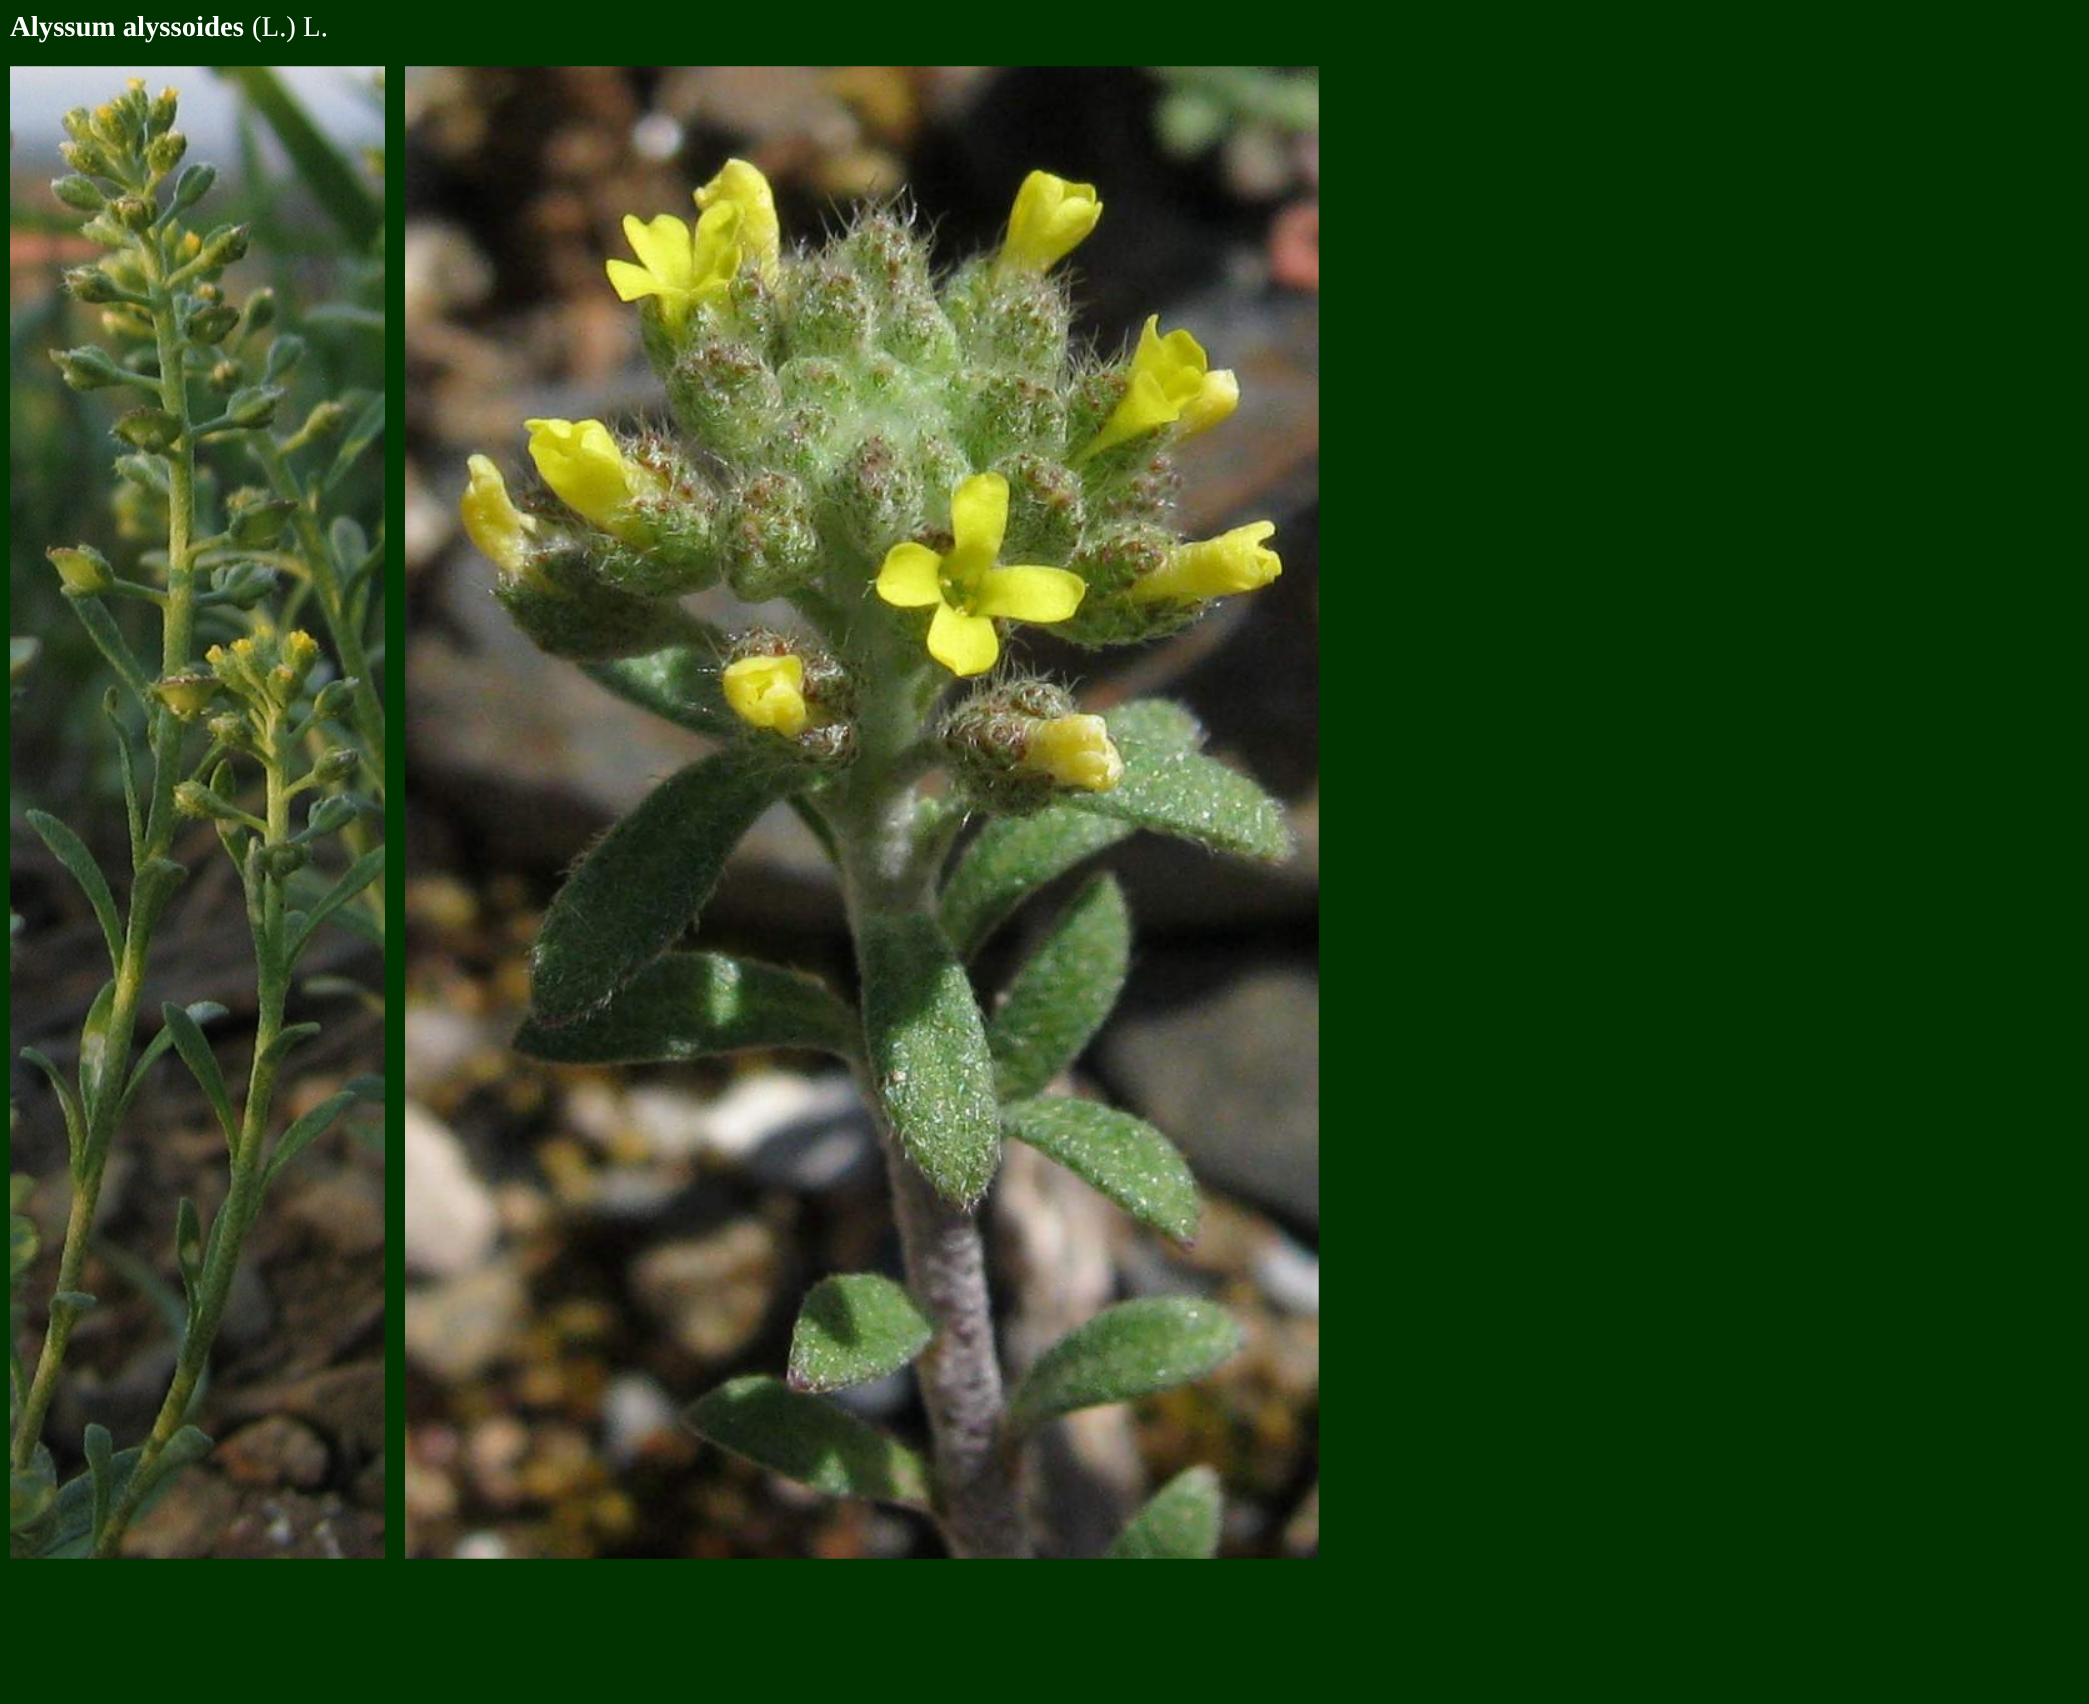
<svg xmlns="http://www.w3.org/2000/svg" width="2089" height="1704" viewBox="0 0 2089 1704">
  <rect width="100%" height="100%" fill="rgb(0,51,0)"/>
  <text x="10" y="36" font-family="Liberation Serif" font-size="28.75" font-weight="bold" fill="rgb(255,255,255)">Alyssum alyssoides</text>
  <text x="252" y="36" font-family="Liberation Serif" font-size="28.75" fill="rgb(255,255,255)">(L.) L.</text>
  <image x="10" y="66" width="375" height="1493" href="pic1.png"/>
  <image x="405" y="66" width="914" height="1493" href="pic2.png"/>
</svg>
